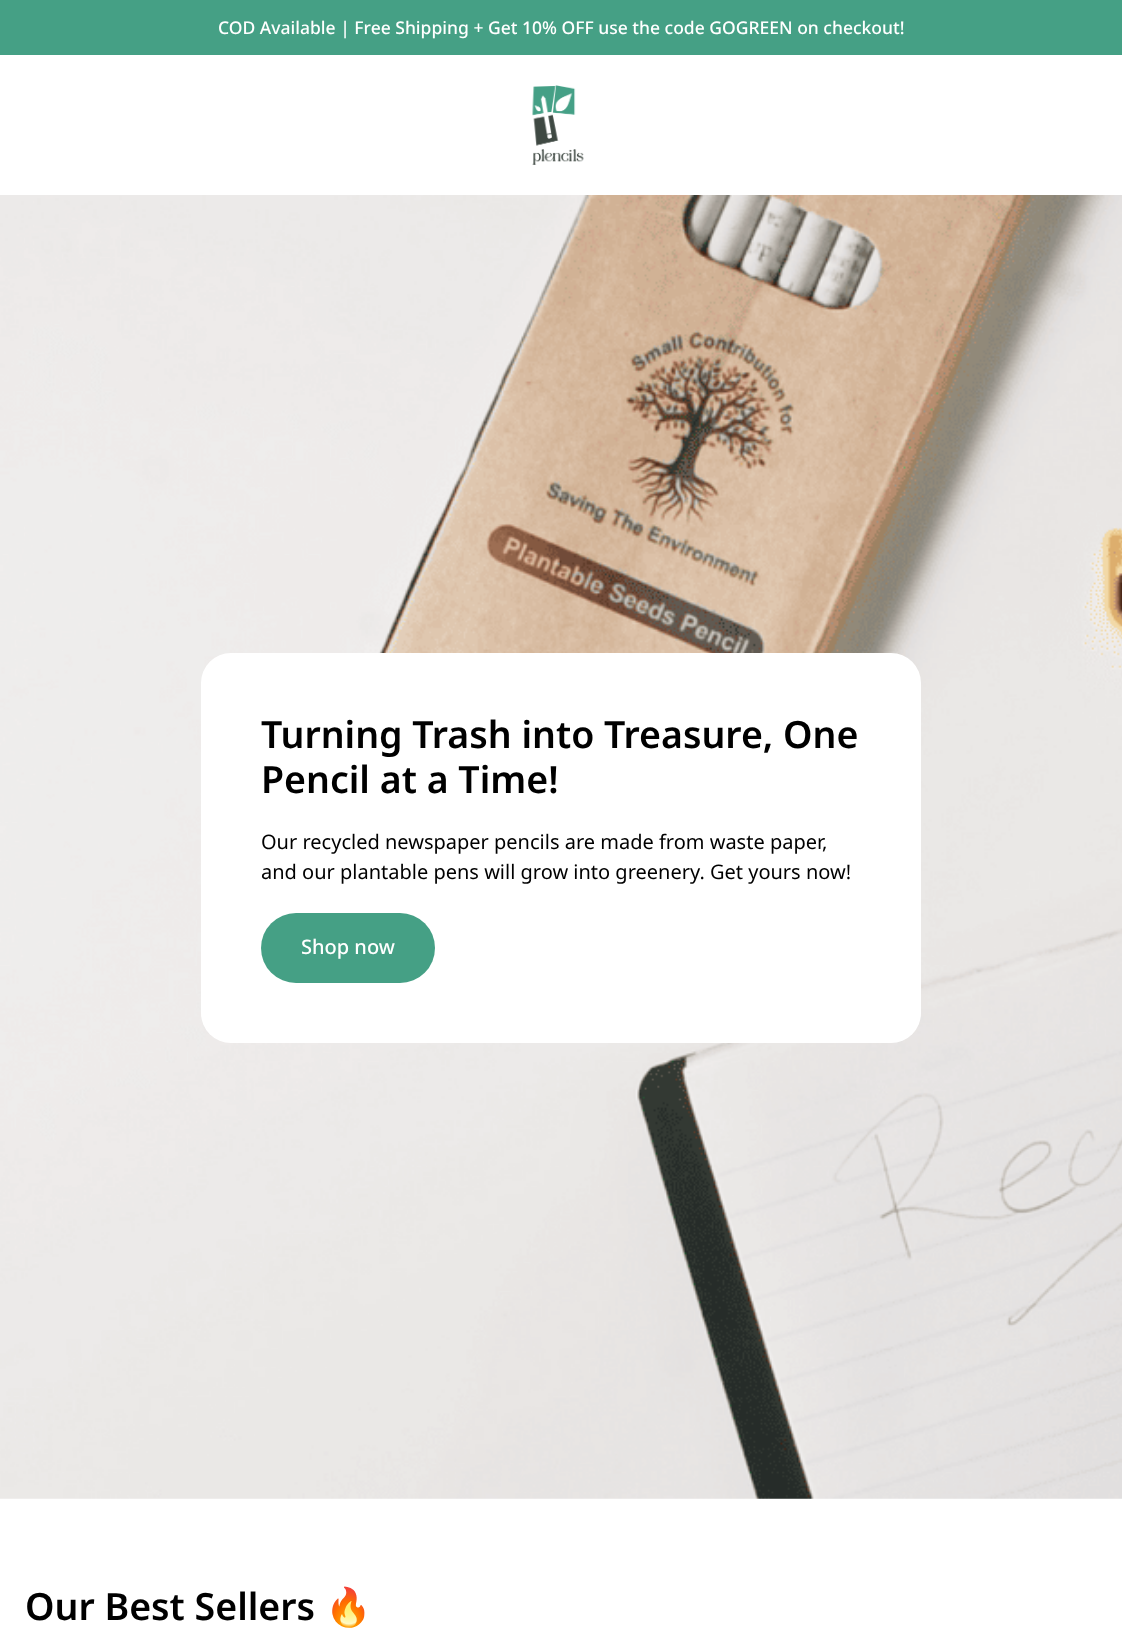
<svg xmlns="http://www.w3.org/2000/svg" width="1122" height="1629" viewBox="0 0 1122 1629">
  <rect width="100%" height="100%" fill="rgb(255,255,255)"/>
  <rect x="0" y="0" width="1122" height="55" fill="rgb(69,160,133)"/>
  <text x="218" y="34" font-family="Noto Sans" font-size="17.5" font-weight="500" fill="rgb(255,255,255)">COD Available | Free Shipping + Get 10% OFF use the code GOGREEN on checkout!</text>
  <image x="532" y="85" width="52" height="80" href="pic1.png"/>
  <image x="0" y="195" width="1122" height="1304" href="pic2.png"/>
  <rect x="201" y="653" width="720" height="390" rx="30" fill="rgb(255,255,255)"/>
  <g font-family="Noto Sans" font-size="37.5" font-weight="600" fill="rgb(0,0,0)">
    <text>
      <tspan x="261" y="748">Turning Trash into Treasure, One</tspan>
      <tspan x="261" y="793">Pencil at a Time!</tspan>
    </text>
  </g>
  <g font-family="Noto Sans" font-size="20" fill="rgb(0,0,0)">
    <text>
      <tspan x="261" y="849">Our recycled newspaper pencils are made from waste paper,</tspan>
      <tspan x="261" y="879">and our plantable pens will grow into greenery. Get yours now!</tspan>
    </text>
  </g>
  <rect x="261" y="913" width="174" height="70" rx="35" fill="rgb(69,160,133)"/>
  <text x="301" y="954" font-family="Noto Sans" font-size="20" font-weight="500" fill="rgb(255,255,255)">Shop now</text>
  <text x="25" y="1620" font-family="Noto Sans" font-size="37.5" font-weight="600" fill="rgb(0,0,0)">Our Best Sellers</text>
  <text x="325" y="1620" font-family="Noto Color Emoji" font-size="37.5" fill="rgb(0,0,0)">🔥</text>
</svg>
